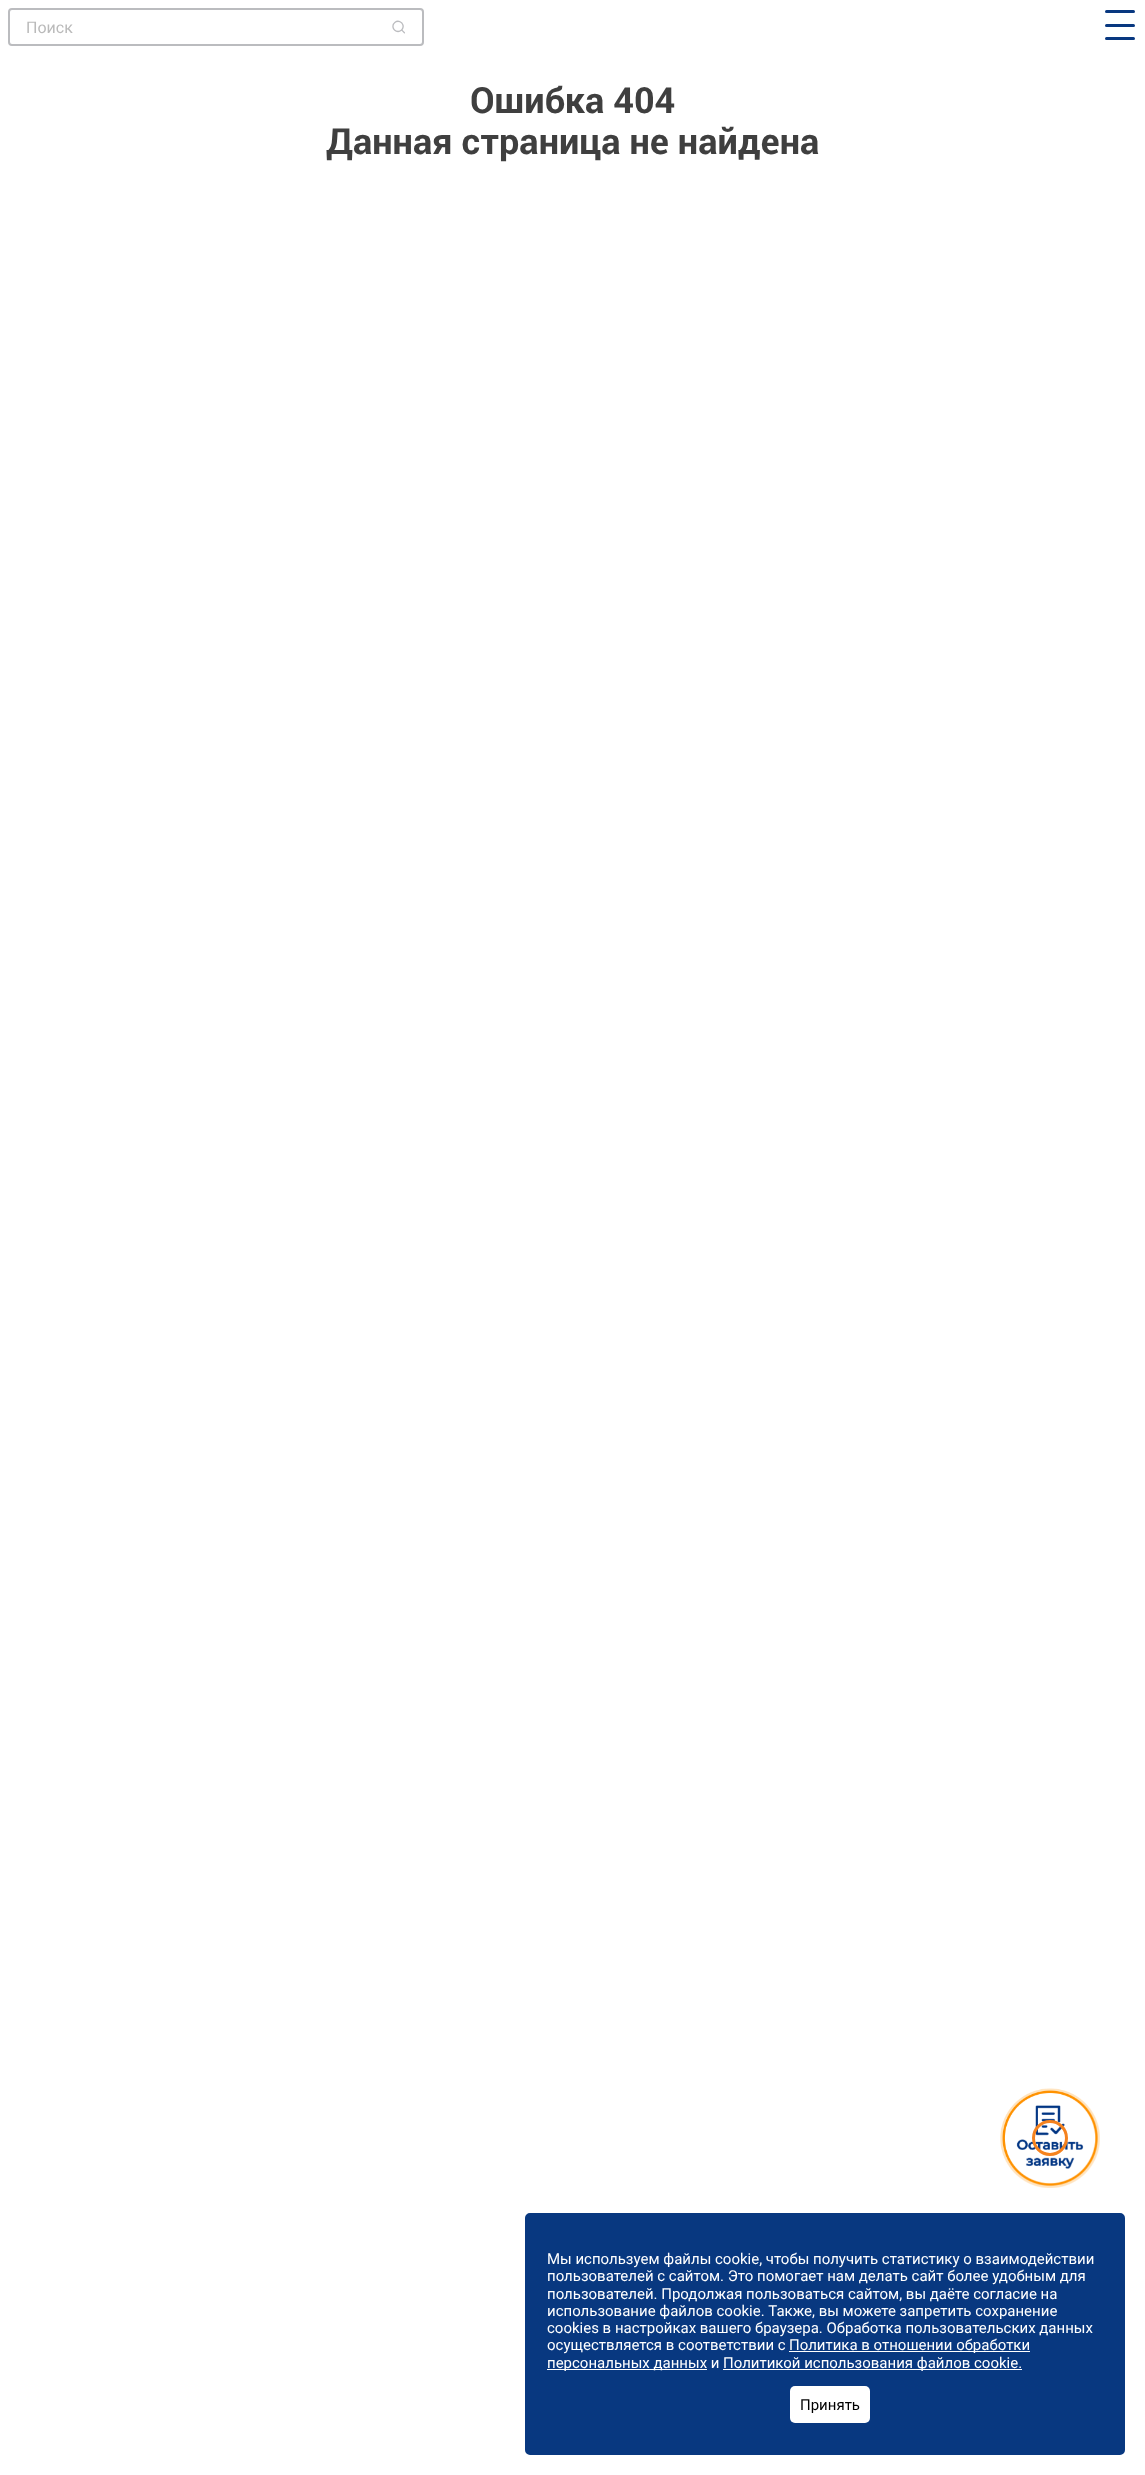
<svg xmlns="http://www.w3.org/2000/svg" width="1145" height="2475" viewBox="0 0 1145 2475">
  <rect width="100%" height="100%" fill="rgb(255,255,255)"/>
  <rect x="9" y="9" width="414" height="36" rx="3" fill="none" stroke="rgb(187,188,191)" stroke-width="2"/>
  <text x="26" y="33" font-family="Roboto" font-size="16" fill="rgb(186,186,186)">Поиск</text>
  <image x="392" y="20" width="13" height="14" href="pic1.png"/>
  <rect x="1105" y="10" width="30" height="3" rx="1.5" fill="rgb(8,56,128)"/>
  <rect x="1105" y="24" width="30" height="3" rx="1.5" fill="rgb(8,56,128)"/>
  <rect x="1105" y="37" width="30" height="3" rx="1.5" fill="rgb(8,56,128)"/>
  <g font-family="Roboto" font-size="36" font-weight="bold" fill="rgb(63,63,63)">
    <text x="470" y="113">Ошибка 404</text>
    <text x="326" y="154">Данная страница не найдена</text>
  </g>
  <image x="1000" y="2088" width="100" height="100" href="pic2.png"/>
  <circle cx="1050" cy="2138" r="16.5" fill="none" stroke="rgb(245,130,30)" stroke-width="3"/>
  <rect x="526" y="2214" width="598" height="240" rx="4" fill="rgb(8,56,128)" stroke="rgb(8,56,128)" stroke-width="2"/>
  <g font-family="Roboto" font-size="15" fill="rgb(255,255,255)">
    <text>
      <tspan x="547" y="2264">Мы используем файлы cookie, чтобы получить статистику о взаимодействии</tspan>
      <tspan x="547" y="2281">пользователей с сайтом. Это помогает нам делать сайт более удобным для</tspan>
      <tspan x="547" y="2299">пользователей. Продолжая пользоваться сайтом, вы даёте согласие на</tspan>
      <tspan x="547" y="2316">использование файлов cookie. Также, вы можете запретить сохранение</tspan>
      <tspan x="547" y="2333">cookies в настройках вашего браузера. Обработка пользовательских данных</tspan>
      <tspan x="547" y="2350">осуществляется в соответствии с</tspan>
    </text>
  </g>
  <rect x="789" y="2351" width="241" height="1" fill="rgb(255,255,255)"/>
  <text x="789" y="2350" font-family="Roboto" font-size="15" fill="rgb(255,255,255)">Политика в отношении обработки</text>
  <rect x="547" y="2369" width="160" height="1" fill="rgb(255,255,255)"/>
  <text x="547" y="2368" font-family="Roboto" font-size="15" fill="rgb(255,255,255)">персональных данных и</text>
  <rect x="723" y="2369" width="299" height="1" fill="rgb(255,255,255)"/>
  <text x="723" y="2368" font-family="Roboto" font-size="15" fill="rgb(255,255,255)">Политикой использования файлов соokie.</text>
  <rect x="790" y="2386" width="80" height="37" rx="5" fill="rgb(255,255,255)"/>
  <text x="800" y="2410" font-family="Roboto" font-size="15" fill="rgb(0,0,0)">Принять</text>
</svg>
